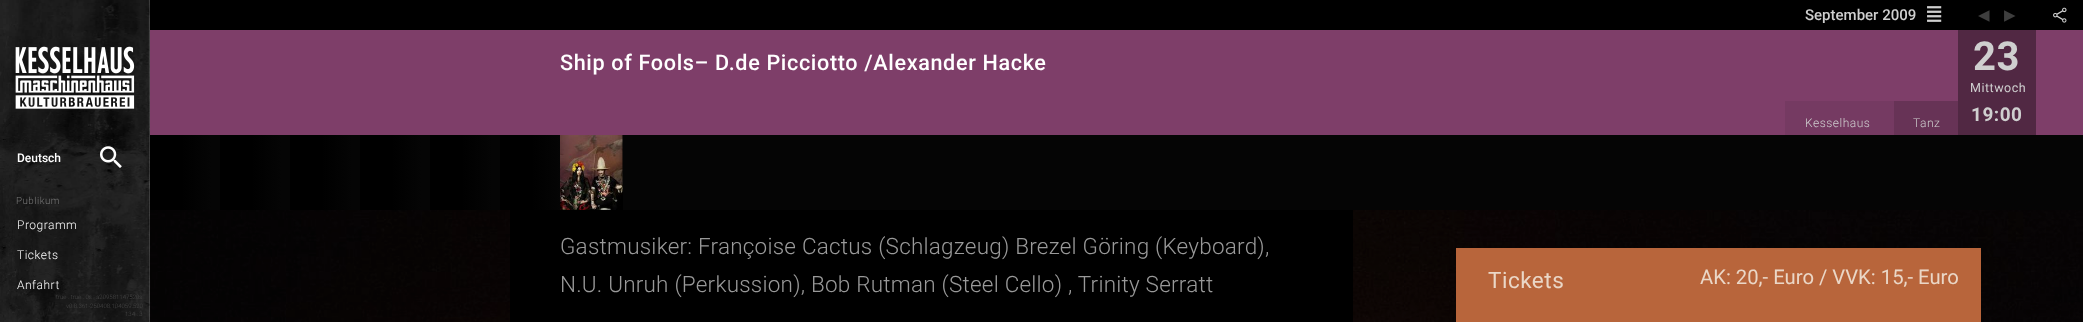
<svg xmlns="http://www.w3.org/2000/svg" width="2083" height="322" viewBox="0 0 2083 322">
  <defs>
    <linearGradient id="g1" gradientUnits="userSpaceOnUse" x1="220" y1="170" x2="150" y2="170"><stop offset="0.12" stop-color="rgb(5,5,5)"/><stop offset="0.55" stop-color="rgb(0,0,0)"/></linearGradient>
    <linearGradient id="g2" gradientUnits="userSpaceOnUse" x1="290" y1="170" x2="220" y2="170"><stop offset="0.12" stop-color="rgb(5,5,5)"/><stop offset="0.55" stop-color="rgb(0,0,0)"/></linearGradient>
    <linearGradient id="g3" gradientUnits="userSpaceOnUse" x1="360" y1="170" x2="290" y2="170"><stop offset="0.12" stop-color="rgb(5,5,5)"/><stop offset="0.55" stop-color="rgb(0,0,0)"/></linearGradient>
    <linearGradient id="g4" gradientUnits="userSpaceOnUse" x1="430" y1="170" x2="360" y2="170"><stop offset="0.12" stop-color="rgb(5,5,5)"/><stop offset="0.55" stop-color="rgb(0,0,0)"/></linearGradient>
    <linearGradient id="g5" gradientUnits="userSpaceOnUse" x1="500" y1="170" x2="430" y2="170"><stop offset="0.12" stop-color="rgb(5,5,5)"/><stop offset="0.55" stop-color="rgb(0,0,0)"/></linearGradient>
    <linearGradient id="g6" gradientUnits="userSpaceOnUse" x1="570" y1="170" x2="500" y2="170"><stop offset="0.12" stop-color="rgb(5,5,5)"/><stop offset="0.55" stop-color="rgb(0,0,0)"/></linearGradient>
  </defs>
  <rect width="100%" height="100%" fill="rgb(255,255,255)"/>
  <image x="0" y="0" width="150" height="322" href="pic1.png"/>
  <image x="15" y="46" width="120" height="63" href="pic2.png"/>
  <text x="17" y="162" font-family="Roboto" font-size="12" font-weight="500" fill="rgb(255,255,255)">Deutsch</text>
  <image x="100" y="146" width="22" height="22" href="pic3.png"/>
  <text x="16" y="204" font-family="Roboto" font-size="9.75" font-weight="300" letter-spacing="0.5" fill="rgb(119,119,119)">Publikum</text>
  <g font-family="Roboto" font-size="12" font-weight="300" letter-spacing="0.5" fill="rgb(255,255,255)">
    <text x="17" y="229">Programm</text>
    <text x="17" y="259">Tickets</text>
    <text x="17" y="289">Anfahrt</text>
  </g>
  <g font-family="Roboto" font-size="6" font-weight="300" fill="rgb(73,73,73)">
    <text x="56" y="299">true . true . 0s . a209581147520s</text>
    <text x="66" y="308">v0.8.361-250408.104059.520</text>
    <text x="125" y="316">134 : 3</text>
  </g>
  <image x="150" y="210" width="1933" height="112" href="pic4.png"/>
  <rect x="150" y="0" width="1933" height="30" fill="rgb(0,0,0)"/>
  <text x="1805" y="20" font-family="Roboto" font-size="15" font-weight="500" fill="rgb(207,207,207)">September 2009</text>
  <image x="1927" y="6" width="15" height="16" href="pic5.png"/>
  <g font-family="DejaVu Sans" font-size="15" fill="rgb(62,62,62)">
    <text x="1978" y="20">◀︎</text>
    <text x="2004" y="20">▶︎</text>
  </g>
  <image x="2053" y="7" width="14" height="16" href="pic6.png"/>
  <rect x="150" y="30" width="1933" height="105" fill="rgb(126,62,105)"/>
  <text x="560" y="70" font-family="Roboto" font-size="21.6" font-weight="500" letter-spacing="0.65" fill="rgb(255,255,255)">Ship of Fools– D.de Picciotto /Alexander Hacke</text>
  <rect x="1958" y="30" width="78" height="105" fill="rgb(81,40,67)"/>
  <text x="1973" y="70" font-family="Roboto" font-size="40" font-weight="bold" letter-spacing="0.5" fill="rgb(207,207,207)">23</text>
  <text x="1970" y="92" font-family="Roboto" font-size="12.5" letter-spacing="0.5" fill="rgb(207,207,207)">Mittwoch</text>
  <text x="1971" y="121" font-family="Roboto" font-size="19" font-weight="bold" letter-spacing="0.5" fill="rgb(207,207,207)">19:00</text>
  <rect x="1785" y="101" width="109" height="34" fill="rgb(117,58,98)"/>
  <text x="1805" y="127" font-family="Roboto" font-size="12" font-weight="300" letter-spacing="0.5" fill="rgb(207,207,207)">Kesselhaus</text>
  <rect x="1894" y="101" width="64" height="34" fill="rgb(103,51,86)"/>
  <text x="1913" y="127" font-family="Roboto" font-size="12" font-weight="300" letter-spacing="0.5" fill="rgb(207,207,207)">Tanz</text>
  <rect x="150" y="135" width="70" height="75" fill="url(#g1)"/>
  <rect x="220" y="135" width="70" height="75" fill="url(#g2)"/>
  <rect x="290" y="135" width="70" height="75" fill="url(#g3)"/>
  <rect x="360" y="135" width="70" height="75" fill="url(#g4)"/>
  <rect x="430" y="135" width="70" height="75" fill="url(#g5)"/>
  <rect x="500" y="135" width="60" height="75" fill="url(#g6)"/>
  <rect x="622" y="135" width="1" height="75" fill="rgb(0,0,0)"/>
  <image x="560" y="135" width="63" height="75" href="pic7.png"/>
  <rect x="623" y="135" width="1460" height="75" fill="rgb(5,5,5)"/>
  <rect x="510" y="210" width="843" height="112" fill="rgb(0,0,0)"/>
  <g font-family="Roboto" font-size="22.5" font-weight="300" letter-spacing="0.22" fill="rgb(153,153,153)">
    <text>
      <tspan x="560" y="254">Gastmusiker: Françoise Cactus (Schlagzeug) Brezel Göring (Keyboard),</tspan>
      <tspan x="560" y="292">N.U. Unruh (Perkussion), Bob Rutman (Steel Cello) , Trinity Serratt</tspan>
    </text>
  </g>
  <rect x="1456" y="248" width="525" height="74" fill="rgb(184,101,59)"/>
  <text x="1488" y="288" font-family="Roboto" font-size="22.5" letter-spacing="0.5" fill="rgb(234,215,199)">Tickets</text>
  <text x="1700" y="284" font-family="Roboto" font-size="20.25" fill="rgb(234,215,199)">AK: 20,- Euro / VVK: 15,- Euro</text>
</svg>
